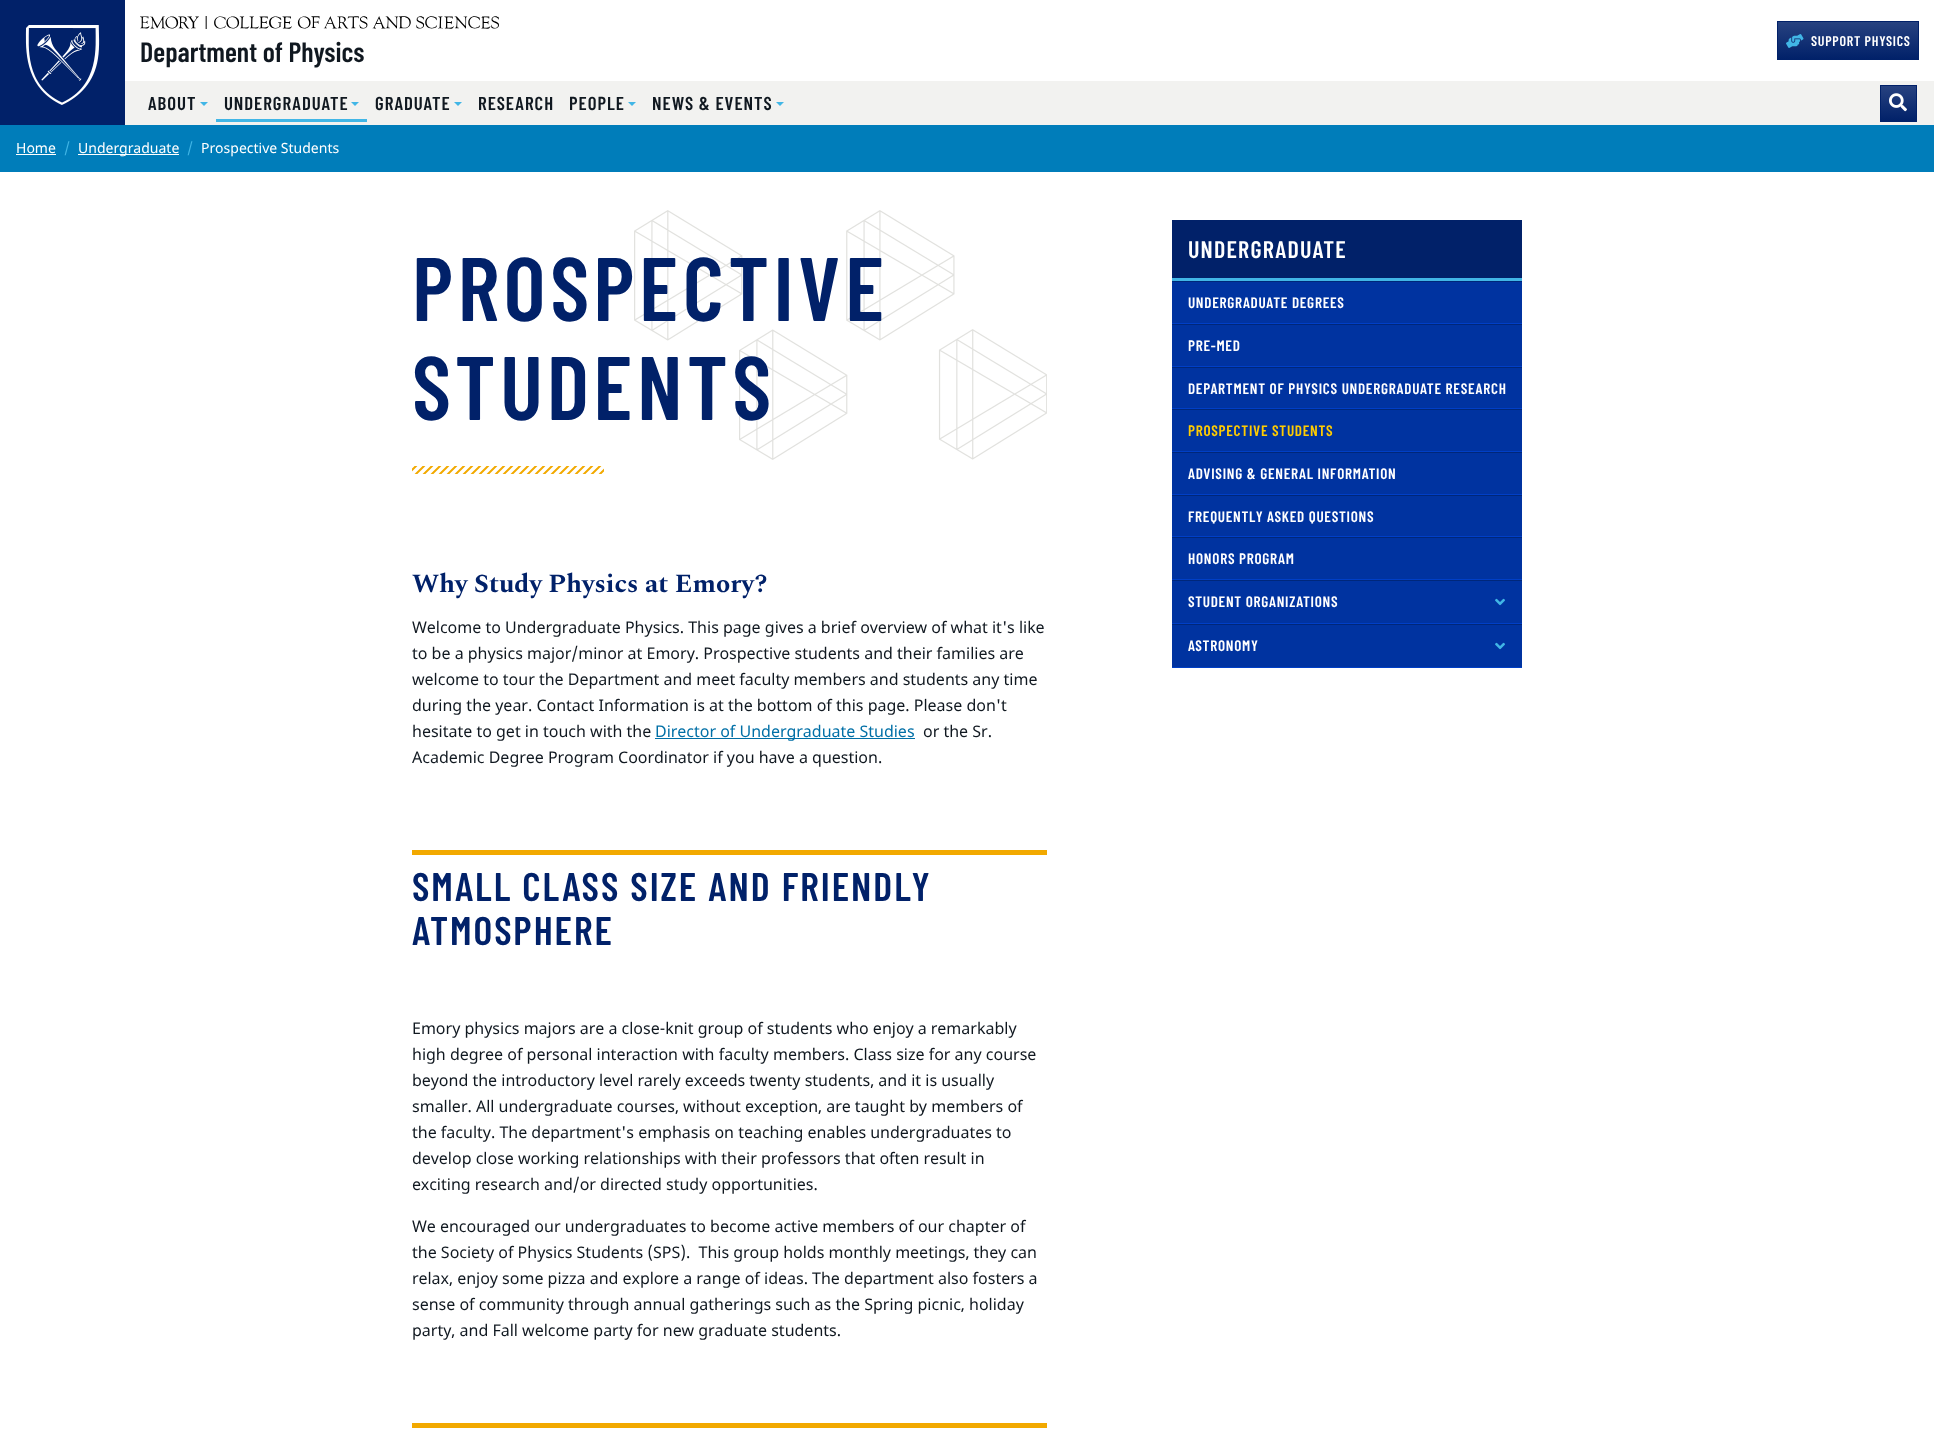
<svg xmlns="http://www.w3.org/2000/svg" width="1934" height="1444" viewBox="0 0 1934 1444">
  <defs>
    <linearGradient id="g1" gradientUnits="userSpaceOnUse" x1="1848" y1="22" x2="1848" y2="59"><stop offset="0" stop-color="rgb(39,66,128)"/><stop offset="1" stop-color="rgb(1,33,105)"/></linearGradient>
    <linearGradient id="g2" gradientUnits="userSpaceOnUse" x1="1899" y1="86" x2="1899" y2="121"><stop offset="0" stop-color="rgb(39,66,128)"/><stop offset="1" stop-color="rgb(1,33,105)"/></linearGradient>
  </defs>
  <rect width="100%" height="100%" fill="rgb(255,255,255)"/>
  <rect x="0" y="0" width="125" height="125" fill="rgb(1,33,105)"/>
  <image x="25" y="25" width="75" height="80" href="pic1.png"/>
  <rect x="1778" y="22" width="140" height="37" fill="url(#g1)"/>
  <rect x="1777.5" y="21.5" width="141" height="38" fill="none" stroke="rgb(1,33,105)"/>
  <image x="1786" y="34" width="18" height="14" href="pic2.png"/>
  <text x="1811" y="46" font-family="Barlow Condensed" font-size="14" font-weight="600" letter-spacing="0.75" fill="rgb(255,255,255)">SUPPORT PHYSICS</text>
  <rect x="125" y="81" width="1809" height="44" fill="rgb(242,242,240)"/>
  <text x="148" y="110" font-family="Barlow Condensed" font-size="18.75" font-weight="600" letter-spacing="1" fill="rgb(16,24,32)">ABOUT</text>
  <path d="M200 102H208L204 106Z" fill="rgb(65,182,230)"/>
  <rect x="216" y="119" width="151" height="3" fill="rgb(65,182,230)"/>
  <text x="224" y="110" font-family="Barlow Condensed" font-size="18.75" font-weight="600" letter-spacing="1" fill="rgb(16,24,32)">UNDERGRADUATE</text>
  <path d="M351 102H359L355 106Z" fill="rgb(65,182,230)"/>
  <text x="375" y="110" font-family="Barlow Condensed" font-size="18.75" font-weight="600" letter-spacing="1" fill="rgb(16,24,32)">GRADUATE</text>
  <path d="M454 102H462L458 106Z" fill="rgb(65,182,230)"/>
  <g font-family="Barlow Condensed" font-size="18.75" font-weight="600" letter-spacing="1" fill="rgb(16,24,32)">
    <text x="478" y="110">RESEARCH</text>
    <text x="569" y="110">PEOPLE</text>
  </g>
  <path d="M628 102H636L632 106Z" fill="rgb(65,182,230)"/>
  <text x="652" y="110" font-family="Barlow Condensed" font-size="18.75" font-weight="600" letter-spacing="1" fill="rgb(16,24,32)">NEWS &amp; EVENTS</text>
  <path d="M776 102H784L780 106Z" fill="rgb(65,182,230)"/>
  <rect x="1881" y="86" width="35" height="35" fill="url(#g2)"/>
  <rect x="1880.5" y="85.5" width="36" height="36" fill="none" stroke="rgb(1,33,105)"/>
  <image x="1889" y="93" width="18" height="19" href="pic3.png"/>
  <image x="140" y="16" width="359" height="13" href="pic4.png"/>
  <text x="140" y="62" font-family="Barlow Condensed" font-size="28" font-weight="600" fill="rgb(16,24,32)">Department of Physics</text>
  <rect x="0" y="125" width="1934" height="47" fill="rgb(0,125,186)"/>
  <text x="16" y="153" font-family="Noto Sans" font-size="14" fill="rgb(255,255,255)">Home</text>
  <rect x="16" y="154" width="40" height="1" fill="rgb(255,255,255)"/>
  <text x="64" y="153" font-family="Noto Sans" font-size="14" fill="rgb(65,182,230)">/</text>
  <rect x="78" y="154" width="101" height="1" fill="rgb(255,255,255)"/>
  <text x="78" y="153" font-family="Noto Sans" font-size="14" fill="rgb(255,255,255)">Undergraduate</text>
  <text x="187" y="153" font-family="Noto Sans" font-size="14" fill="rgb(65,182,230)">/</text>
  <text x="201" y="153" font-family="Noto Sans" font-size="14" fill="rgb(255,255,255)">Prospective Students</text>
  <image x="634" y="210" width="413" height="250" href="pic5.png"/>
  <g font-family="Barlow Condensed" font-size="90" font-weight="600" letter-spacing="4.5" fill="rgb(1,33,105)">
    <text>
      <tspan x="412" y="321">PROSPECTIVE</tspan>
      <tspan x="412" y="420">STUDENTS</tspan>
    </text>
  </g>
  <image x="412" y="466" width="192" height="8" href="pic6.png"/>
  <text x="412" y="592" font-family="Spectral" font-size="26" font-weight="bold" fill="rgb(1,33,105)">Why Study Physics at Emory?</text>
  <g font-family="Noto Sans" font-size="16" fill="rgb(16,24,32)">
    <text>
      <tspan x="412" y="633">Welcome to Undergraduate Physics. This page gives a brief overview of what it's like</tspan>
      <tspan x="412" y="659">to be a physics major/minor at Emory. Prospective students and their families are</tspan>
      <tspan x="412" y="685">welcome to tour the Department and meet faculty members and students any time</tspan>
      <tspan x="412" y="711">during the year. Contact Information is at the bottom of this page. Please don't</tspan>
      <tspan x="412" y="737">hesitate to get in touch with the</tspan>
    </text>
  </g>
  <rect x="655" y="738" width="260" height="1" fill="rgb(0,111,166)"/>
  <text x="655" y="737" font-family="Noto Sans" font-size="16" fill="rgb(0,111,166)">Director of Undergraduate Studies</text>
  <g font-family="Noto Sans" font-size="16" fill="rgb(16,24,32)">
    <text x="923" y="737">or the Sr.</text>
    <text x="412" y="763">Academic Degree Program Coordinator if you have a question.</text>
  </g>
  <rect x="412" y="850" width="635" height="5" fill="rgb(242,169,0)"/>
  <g font-family="Barlow Condensed" font-size="40" font-weight="600" letter-spacing="2" fill="rgb(1,33,105)">
    <text>
      <tspan x="412" y="901">SMALL CLASS SIZE AND FRIENDLY</tspan>
      <tspan x="412" y="945">ATMOSPHERE</tspan>
    </text>
  </g>
  <g font-family="Noto Sans" font-size="16" fill="rgb(16,24,32)">
    <text>
      <tspan x="412" y="1034">Emory physics majors are a close-knit group of students who enjoy a remarkably</tspan>
      <tspan x="412" y="1060">high degree of personal interaction with faculty members. Class size for any course</tspan>
      <tspan x="412" y="1086">beyond the introductory level rarely exceeds twenty students, and it is usually</tspan>
      <tspan x="412" y="1112">smaller. All undergraduate courses, without exception, are taught by members of</tspan>
      <tspan x="412" y="1138">the faculty. The department's emphasis on teaching enables undergraduates to</tspan>
      <tspan x="412" y="1164">develop close working relationships with their professors that often result in</tspan>
      <tspan x="412" y="1190">exciting research and/or directed study opportunities.</tspan>
    </text>
    <text xml:space="preserve"><tspan x="412" y="1232">We encouraged our undergraduates to become active members of our chapter of</tspan><tspan x="412" y="1258">the Society of Physics Students (SPS).  This group holds monthly meetings, they can</tspan><tspan x="412" y="1284">relax, enjoy some pizza and explore a range of ideas. The department also fosters a</tspan><tspan x="412" y="1310">sense of community through annual gatherings such as the Spring picnic, holiday</tspan><tspan x="412" y="1336">party, and Fall welcome party for new graduate students.</tspan></text>
  </g>
  <rect x="412" y="1423" width="635" height="5" fill="rgb(242,169,0)"/>
  <rect x="1172" y="220" width="350" height="58" fill="rgb(1,33,105)"/>
  <rect x="1172" y="278" width="350" height="3" fill="rgb(65,182,230)"/>
  <text x="1188" y="258" font-family="Barlow Condensed" font-size="24" font-weight="600" letter-spacing="1.25" fill="rgb(255,255,255)">UNDERGRADUATE</text>
  <rect x="1172" y="282" width="350" height="41" fill="rgb(0,51,160)"/>
  <rect x="1172" y="281" width="350" height="1" fill="rgb(0,39,122)"/>
  <rect x="1172" y="323" width="350" height="1" fill="rgb(0,63,198)"/>
  <text x="1188" y="308" font-family="Barlow Condensed" font-size="15.2" font-weight="600" letter-spacing="0.75" fill="rgb(255,255,255)">UNDERGRADUATE DEGREES</text>
  <rect x="1172" y="325" width="350" height="41" fill="rgb(0,51,160)"/>
  <rect x="1172" y="324" width="350" height="1" fill="rgb(0,39,122)"/>
  <rect x="1172" y="366" width="350" height="1" fill="rgb(0,63,198)"/>
  <text x="1188" y="351" font-family="Barlow Condensed" font-size="15.2" font-weight="600" letter-spacing="0.75" fill="rgb(255,255,255)">PRE-MED</text>
  <rect x="1172" y="368" width="350" height="40" fill="rgb(0,51,160)"/>
  <rect x="1172" y="367" width="350" height="1" fill="rgb(0,39,122)"/>
  <rect x="1172" y="408" width="350" height="1" fill="rgb(0,63,198)"/>
  <text x="1188" y="394" font-family="Barlow Condensed" font-size="15.2" font-weight="600" letter-spacing="0.75" fill="rgb(255,255,255)">DEPARTMENT OF PHYSICS UNDERGRADUATE RESEARCH</text>
  <rect x="1172" y="410" width="350" height="41" fill="rgb(0,51,160)"/>
  <rect x="1172" y="409" width="350" height="1" fill="rgb(0,39,122)"/>
  <rect x="1172" y="451" width="350" height="1" fill="rgb(0,63,198)"/>
  <text x="1188" y="436" font-family="Barlow Condensed" font-size="15.2" font-weight="600" letter-spacing="0.75" fill="rgb(255,204,0)">PROSPECTIVE STUDENTS</text>
  <rect x="1172" y="453" width="350" height="41" fill="rgb(0,51,160)"/>
  <rect x="1172" y="452" width="350" height="1" fill="rgb(0,39,122)"/>
  <rect x="1172" y="494" width="350" height="1" fill="rgb(0,63,198)"/>
  <text x="1188" y="479" font-family="Barlow Condensed" font-size="15.2" font-weight="600" letter-spacing="0.75" fill="rgb(255,255,255)">ADVISING &amp; GENERAL INFORMATION</text>
  <rect x="1172" y="496" width="350" height="40" fill="rgb(0,51,160)"/>
  <rect x="1172" y="495" width="350" height="1" fill="rgb(0,39,122)"/>
  <rect x="1172" y="536" width="350" height="1" fill="rgb(0,63,198)"/>
  <text x="1188" y="522" font-family="Barlow Condensed" font-size="15.2" font-weight="600" letter-spacing="0.75" fill="rgb(255,255,255)">FREQUENTLY ASKED QUESTIONS</text>
  <rect x="1172" y="538" width="350" height="41" fill="rgb(0,51,160)"/>
  <rect x="1172" y="537" width="350" height="1" fill="rgb(0,39,122)"/>
  <rect x="1172" y="579" width="350" height="1" fill="rgb(0,63,198)"/>
  <text x="1188" y="564" font-family="Barlow Condensed" font-size="15.2" font-weight="600" letter-spacing="0.75" fill="rgb(255,255,255)">HONORS PROGRAM</text>
  <rect x="1172" y="581" width="350" height="42" fill="rgb(0,51,160)"/>
  <rect x="1172" y="580" width="350" height="1" fill="rgb(0,39,122)"/>
  <rect x="1172" y="623" width="350" height="1" fill="rgb(0,63,198)"/>
  <text x="1188" y="607" font-family="Barlow Condensed" font-size="15.2" font-weight="600" letter-spacing="0.75" fill="rgb(255,255,255)">STUDENT ORGANIZATIONS</text>
  <image x="1495" y="598" width="10" height="8" href="pic7.png"/>
  <rect x="1172" y="625" width="350" height="42" fill="rgb(0,51,160)"/>
  <rect x="1172" y="624" width="350" height="1" fill="rgb(0,39,122)"/>
  <rect x="1172" y="667" width="350" height="1" fill="rgb(0,63,198)"/>
  <text x="1188" y="651" font-family="Barlow Condensed" font-size="15.2" font-weight="600" letter-spacing="0.75" fill="rgb(255,255,255)">ASTRONOMY</text>
  <image x="1495" y="642" width="10" height="8" href="pic7.png"/>
</svg>
